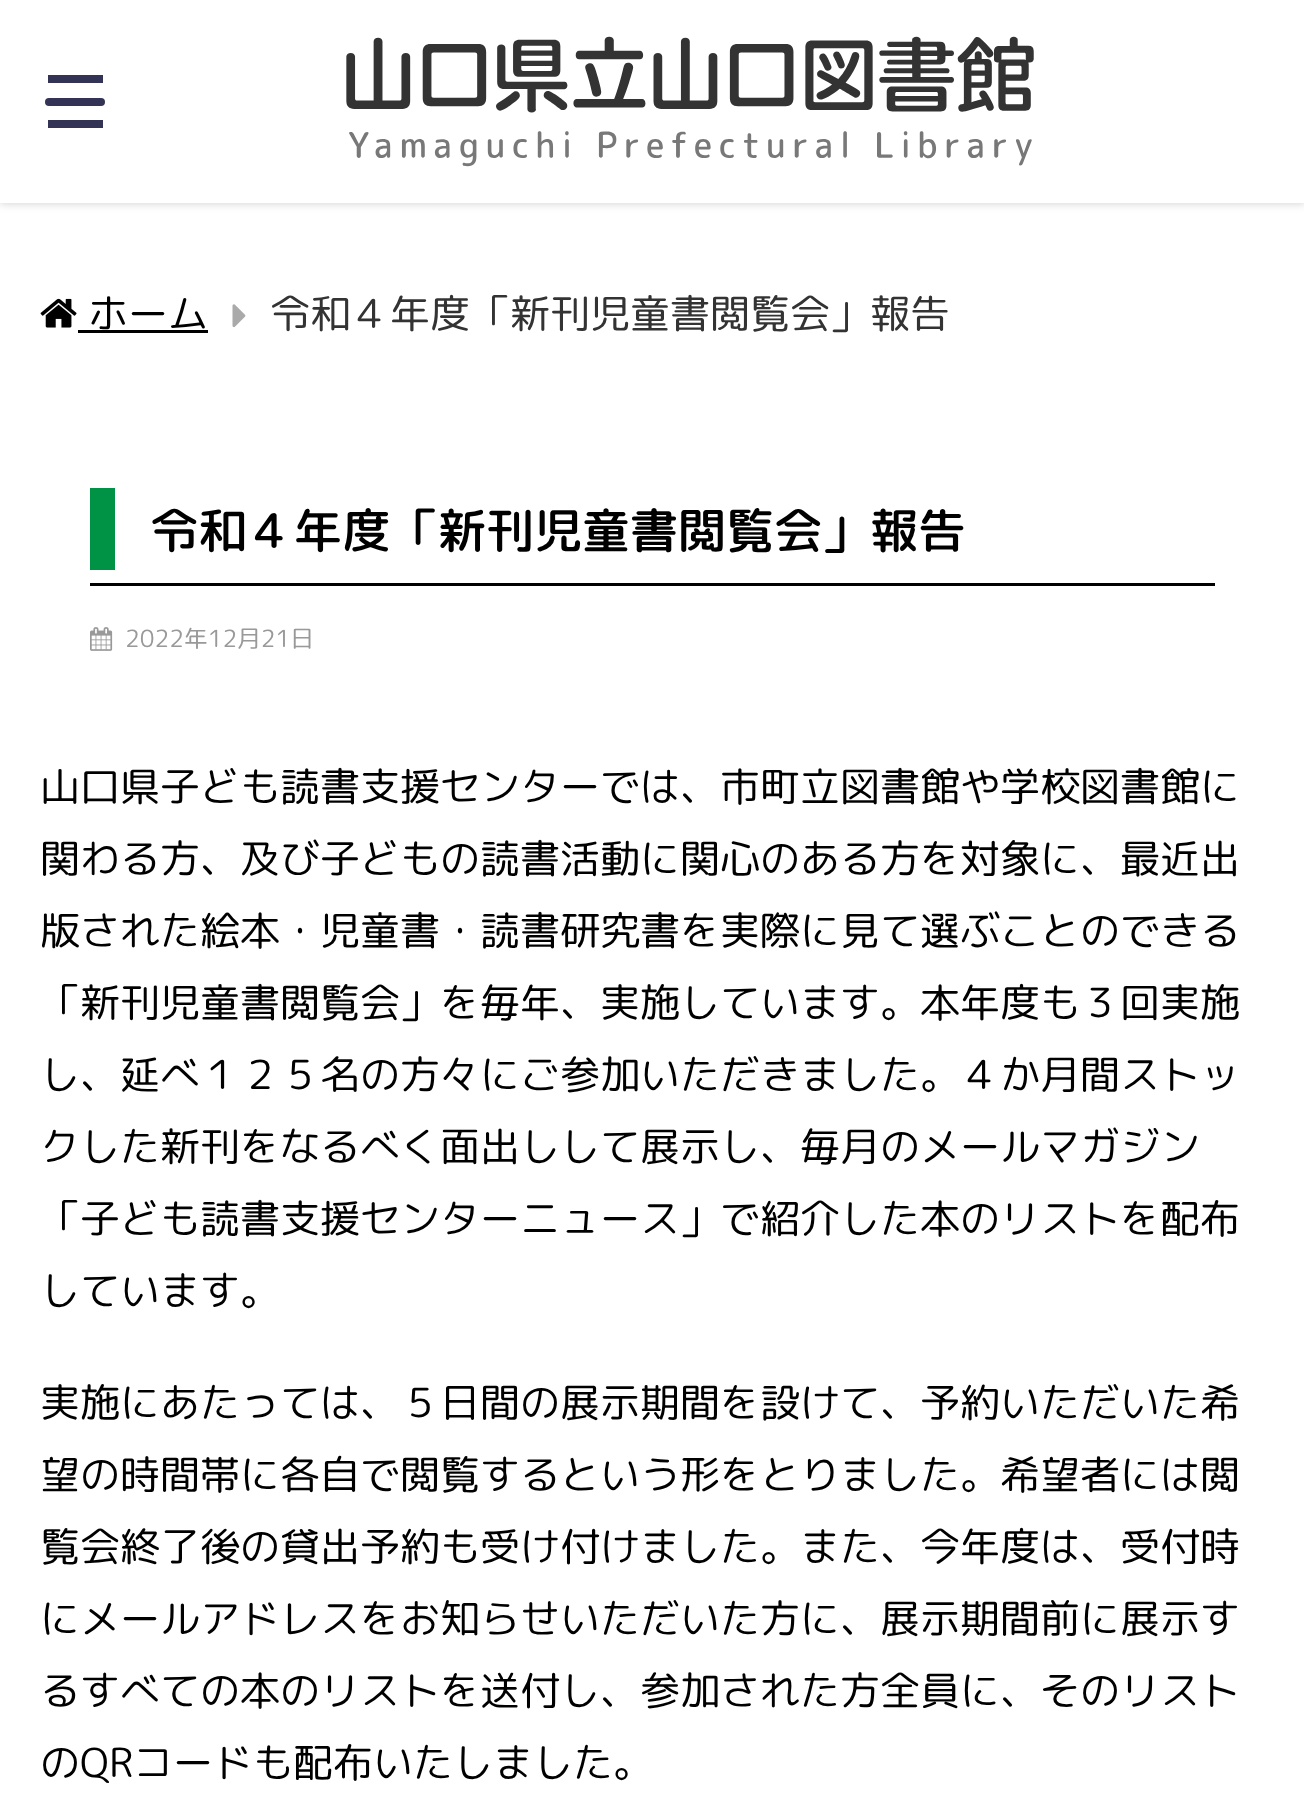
<svg xmlns="http://www.w3.org/2000/svg" width="1304" height="1815" viewBox="0 0 1304 1815">
  <rect width="100%" height="100%" fill="rgb(255,255,255)"/>
  <rect x="0" y="0" width="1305" height="203" fill="rgba(0,0,0,0.2)" filter="blur(5px)"/>
  <rect x="0" y="0" width="1304" height="203" fill="rgb(255,255,255)"/>
  <rect x="48" y="75" width="55" height="8" fill="rgb(51,51,85)"/>
  <rect x="45" y="98" width="60" height="8" rx="4" fill="rgb(51,51,85)"/>
  <rect x="48" y="120" width="55" height="8" fill="rgb(51,51,85)"/>
  <image x="346" y="36" width="688" height="131" href="pic1.png"/>
  <image x="40" y="298" width="37" height="30" href="pic2.png"/>
  <text x="88" y="328" font-family="'Rounded Mplus 1c'" font-size="40" fill="rgb(0,0,0)">ホーム</text>
  <rect x="78" y="330" width="130" height="3" fill="rgb(0,0,0)"/>
  <image x="232" y="304" width="14" height="24" href="pic3.png"/>
  <text x="270" y="328" font-family="'Rounded Mplus 1c'" font-size="40" fill="rgb(51,51,51)">令和４年度「新刊児童書閲覧会」報告</text>
  <rect x="90" y="583" width="1125" height="3" fill="rgb(0,0,0)"/>
  <rect x="90" y="488" width="25" height="82" fill="rgb(0,146,69)"/>
  <text x="150" y="548" font-family="'Rounded Mplus 1c'" font-size="48" font-weight="500" fill="rgb(0,0,0)">令和４年度「新刊児童書閲覧会」報告</text>
  <image x="90" y="627" width="23" height="24" href="pic4.png"/>
  <text x="125" y="647" font-family="'Rounded Mplus 1c'" font-size="23.75" fill="rgb(153,153,153)">2022年12月21日</text>
  <g font-family="'Rounded Mplus 1c'" font-size="40" fill="rgb(0,0,0)">
    <text>
      <tspan x="40" y="801">山口県子ども読書支援センターでは、市町立図書館や学校図書館に</tspan>
      <tspan x="40" y="873">関わる方、及び子どもの読書活動に関心のある方を対象に、最近出</tspan>
      <tspan x="40" y="945">版された絵本・児童書・読書研究書を実際に見て選ぶことのできる</tspan>
      <tspan x="40" y="1017">「新刊児童書閲覧会」を毎年、実施しています。本年度も３回実施</tspan>
      <tspan x="40" y="1089">し、延べ１２５名の方々にご参加いただきました。４か月間ストッ</tspan>
      <tspan x="40" y="1161">クした新刊をなるべく面出しして展示し、毎月のメールマガジン</tspan>
      <tspan x="40" y="1233">「子ども読書支援センターニュース」で紹介した本のリストを配布</tspan>
      <tspan x="40" y="1305">しています。</tspan>
    </text>
    <text>
      <tspan x="40" y="1417">実施にあたっては、５日間の展示期間を設けて、予約いただいた希</tspan>
      <tspan x="40" y="1489">望の時間帯に各自で閲覧するという形をとりました。希望者には閲</tspan>
      <tspan x="40" y="1561">覧会終了後の貸出予約も受け付けました。また、今年度は、受付時</tspan>
      <tspan x="40" y="1633">にメールアドレスをお知らせいただいた方に、展示期間前に展示す</tspan>
      <tspan x="40" y="1705">るすべての本のリストを送付し、参加された方全員に、そのリスト</tspan>
      <tspan x="40" y="1777">のQRコードも配布いたしました。</tspan>
    </text>
  </g>
</svg>
